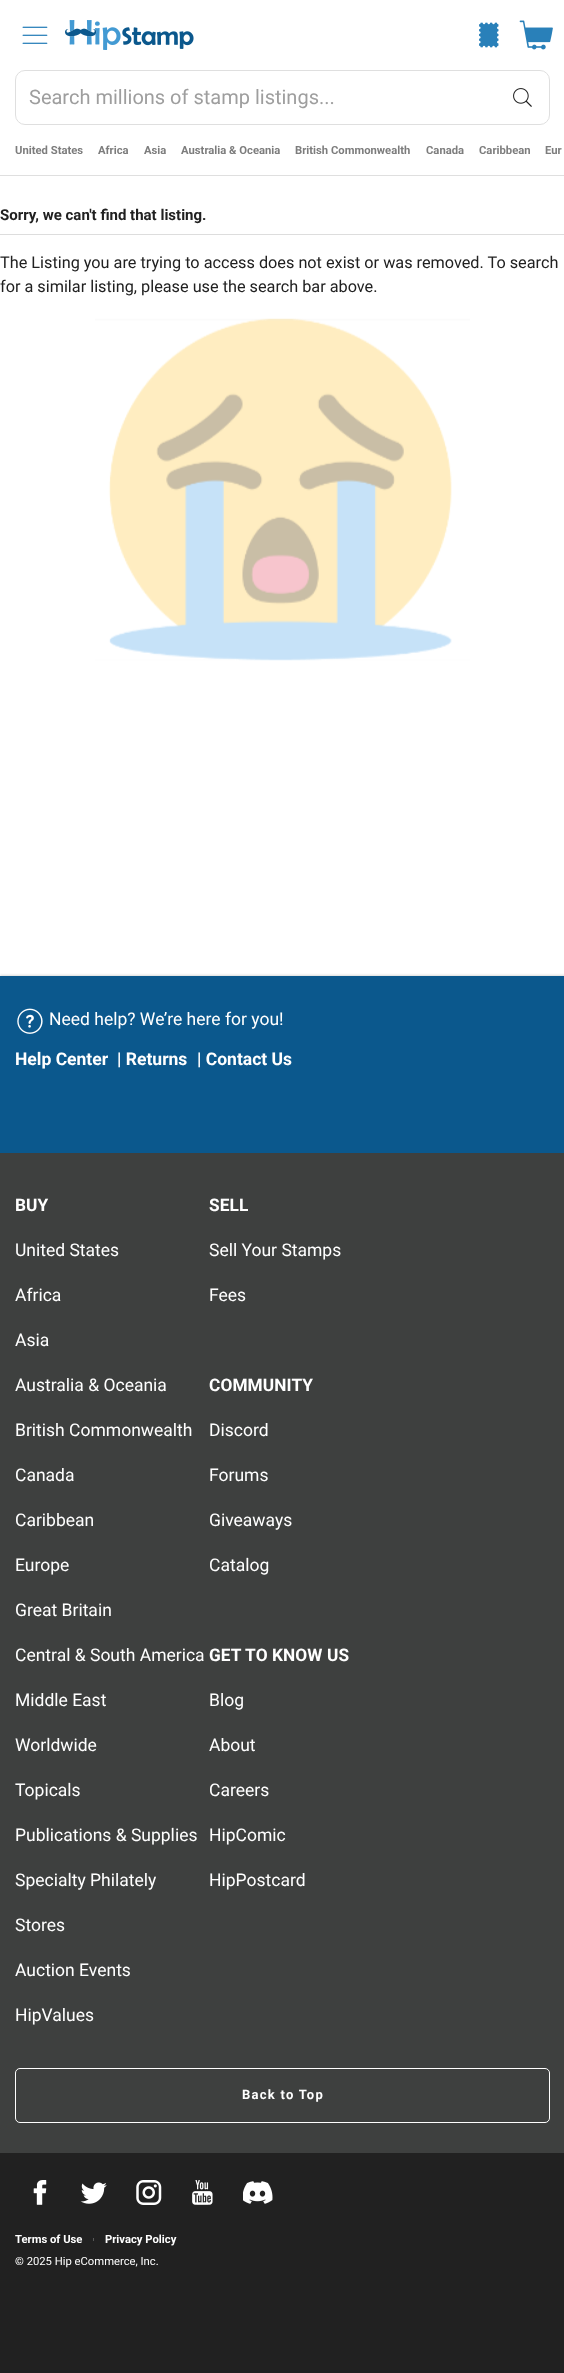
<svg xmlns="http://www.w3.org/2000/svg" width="564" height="2373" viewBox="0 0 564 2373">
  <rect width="100%" height="100%" fill="rgb(255,255,255)"/>
  <image x="22" y="26" width="26" height="18" href="pic1.png"/>
  <image x="65" y="20" width="129" height="30" href="pic2.png"/>
  <image x="479" y="22" width="20" height="26" href="pic3.png"/>
  <image x="519" y="20" width="34" height="30" href="pic4.png"/>
  <rect x="15.5" y="70.5" width="534" height="54" rx="9.5" fill="none" stroke="rgb(223,223,223)"/>
  <text x="29" y="104" font-family="Roboto" font-size="20" fill="rgb(158,158,158)">Search millions of stamp listings...</text>
  <image x="513" y="88" width="19" height="19" href="pic5.png"/>
  <rect x="0" y="175" width="564" height="1" fill="rgb(223,223,223)"/>
  <g font-family="Roboto" font-size="11.25" font-weight="bold" fill="rgb(125,125,125)">
    <text x="15" y="154">United States</text>
    <text x="98" y="154">Africa</text>
    <text x="144" y="154">Asia</text>
    <text x="181" y="154">Australia &amp; Oceania</text>
    <text x="295" y="154">British Commonwealth</text>
    <text x="426" y="154">Canada</text>
    <text x="479" y="154">Caribbean</text>
    <text x="545" y="154">Eur</text>
  </g>
  <rect x="0" y="234" width="564" height="1" fill="rgb(221,221,221)"/>
  <text x="0" y="220" font-family="Roboto" font-size="15" font-weight="bold" fill="rgb(33,33,33)">Sorry, we can't find that listing.</text>
  <g font-family="Roboto" font-size="16.25" fill="rgb(33,33,33)">
    <text>
      <tspan x="0" y="268">The Listing you are trying to access does not exist or was removed. To search</tspan>
      <tspan x="0" y="292">for a similar listing, please use the search bar above.</tspan>
    </text>
  </g>
  <image x="95" y="318" width="375" height="343" href="pic6.png"/>
  <rect x="0" y="975" width="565" height="1398" fill="rgba(71,73,72,0.2)" filter="blur(1px)"/>
  <rect x="0" y="976" width="564" height="177" fill="rgb(11,88,141)"/>
  <image x="17" y="1008" width="26" height="26" href="pic7.png"/>
  <text x="49" y="1025" font-family="Roboto" font-size="17.5" fill="rgb(255,255,255)">Need help? We’re here for you!</text>
  <g font-family="Roboto" font-size="17.5" font-weight="bold" fill="rgb(255,255,255)">
    <text x="15" y="1065">Help Center</text>
    <text x="117" y="1065">| Returns</text>
    <text x="197" y="1065">| Contact Us</text>
  </g>
  <rect x="0" y="1153" width="564" height="1000" fill="rgb(62,64,63)"/>
  <text x="15" y="1211" font-family="Roboto" font-size="17.25" font-weight="bold" letter-spacing="0.1" fill="rgb(255,255,255)">BUY</text>
  <g font-family="Roboto" font-size="17.5" fill="rgb(255,255,255)">
    <text x="15" y="1256">United States</text>
    <text x="15" y="1301">Africa</text>
    <text x="15" y="1346">Asia</text>
    <text x="15" y="1391">Australia &amp; Oceania</text>
    <text x="15" y="1436">British Commonwealth</text>
    <text x="15" y="1481">Canada</text>
    <text x="15" y="1526">Caribbean</text>
    <text x="15" y="1571">Europe</text>
    <text x="15" y="1616">Great Britain</text>
    <text x="15" y="1661">Central &amp; South America</text>
    <text x="15" y="1706">Middle East</text>
    <text x="15" y="1751">Worldwide</text>
    <text x="15" y="1796">Topicals</text>
    <text x="15" y="1841">Publications &amp; Supplies</text>
    <text x="15" y="1886">Specialty Philately</text>
    <text x="15" y="1931">Stores</text>
    <text x="15" y="1976">Auction Events</text>
    <text x="15" y="2021">HipValues</text>
  </g>
  <text x="209" y="1211" font-family="Roboto" font-size="17.25" font-weight="bold" letter-spacing="0.1" fill="rgb(255,255,255)">SELL</text>
  <g font-family="Roboto" font-size="17.5" fill="rgb(255,255,255)">
    <text x="209" y="1256">Sell Your Stamps</text>
    <text x="209" y="1301">Fees</text>
  </g>
  <text x="209" y="1391" font-family="Roboto" font-size="17.25" font-weight="bold" letter-spacing="0.1" fill="rgb(255,255,255)">COMMUNITY</text>
  <g font-family="Roboto" font-size="17.5" fill="rgb(255,255,255)">
    <text x="209" y="1436">Discord</text>
    <text x="209" y="1481">Forums</text>
    <text x="209" y="1526">Giveaways</text>
    <text x="209" y="1571">Catalog</text>
  </g>
  <text x="209" y="1661" font-family="Roboto" font-size="17.25" font-weight="bold" letter-spacing="0.1" fill="rgb(255,255,255)">GET TO KNOW US</text>
  <g font-family="Roboto" font-size="17.5" fill="rgb(255,255,255)">
    <text x="209" y="1706">Blog</text>
    <text x="209" y="1751">About</text>
    <text x="209" y="1796">Careers</text>
    <text x="209" y="1841">HipComic</text>
    <text x="209" y="1886">HipPostcard</text>
  </g>
  <rect x="15.5" y="2068.5" width="534" height="54" rx="4.5" fill="none" stroke="rgb(255,255,255)"/>
  <text x="242" y="2099" font-family="Roboto" font-size="13" font-weight="bold" letter-spacing="1.25" fill="rgb(255,255,255)">Back to Top</text>
  <rect x="0" y="2153" width="564" height="220" fill="rgb(33,33,33)"/>
  <image x="33" y="2180" width="14" height="25" href="pic8.png"/>
  <image x="80" y="2182" width="27" height="22" href="pic9.png"/>
  <image x="136" y="2180" width="26" height="25" href="pic10.png"/>
  <image x="192" y="2180" width="21" height="25" href="pic11.png"/>
  <image x="243" y="2181" width="30" height="23" href="pic12.png"/>
  <text x="15" y="2243" font-family="Roboto" font-size="11.25" font-weight="bold" fill="rgb(255,255,255)">Terms of Use</text>
  <rect x="93" y="2238" width="1" height="3" fill="rgb(89,89,89)"/>
  <text x="105" y="2243" font-family="Roboto" font-size="11.25" font-weight="bold" fill="rgb(255,255,255)">Privacy Policy</text>
  <text x="15" y="2265" font-family="Roboto" font-size="11.25" fill="rgb(255,255,255)">© 2025 Hip eCommerce, Inc.</text>
</svg>
